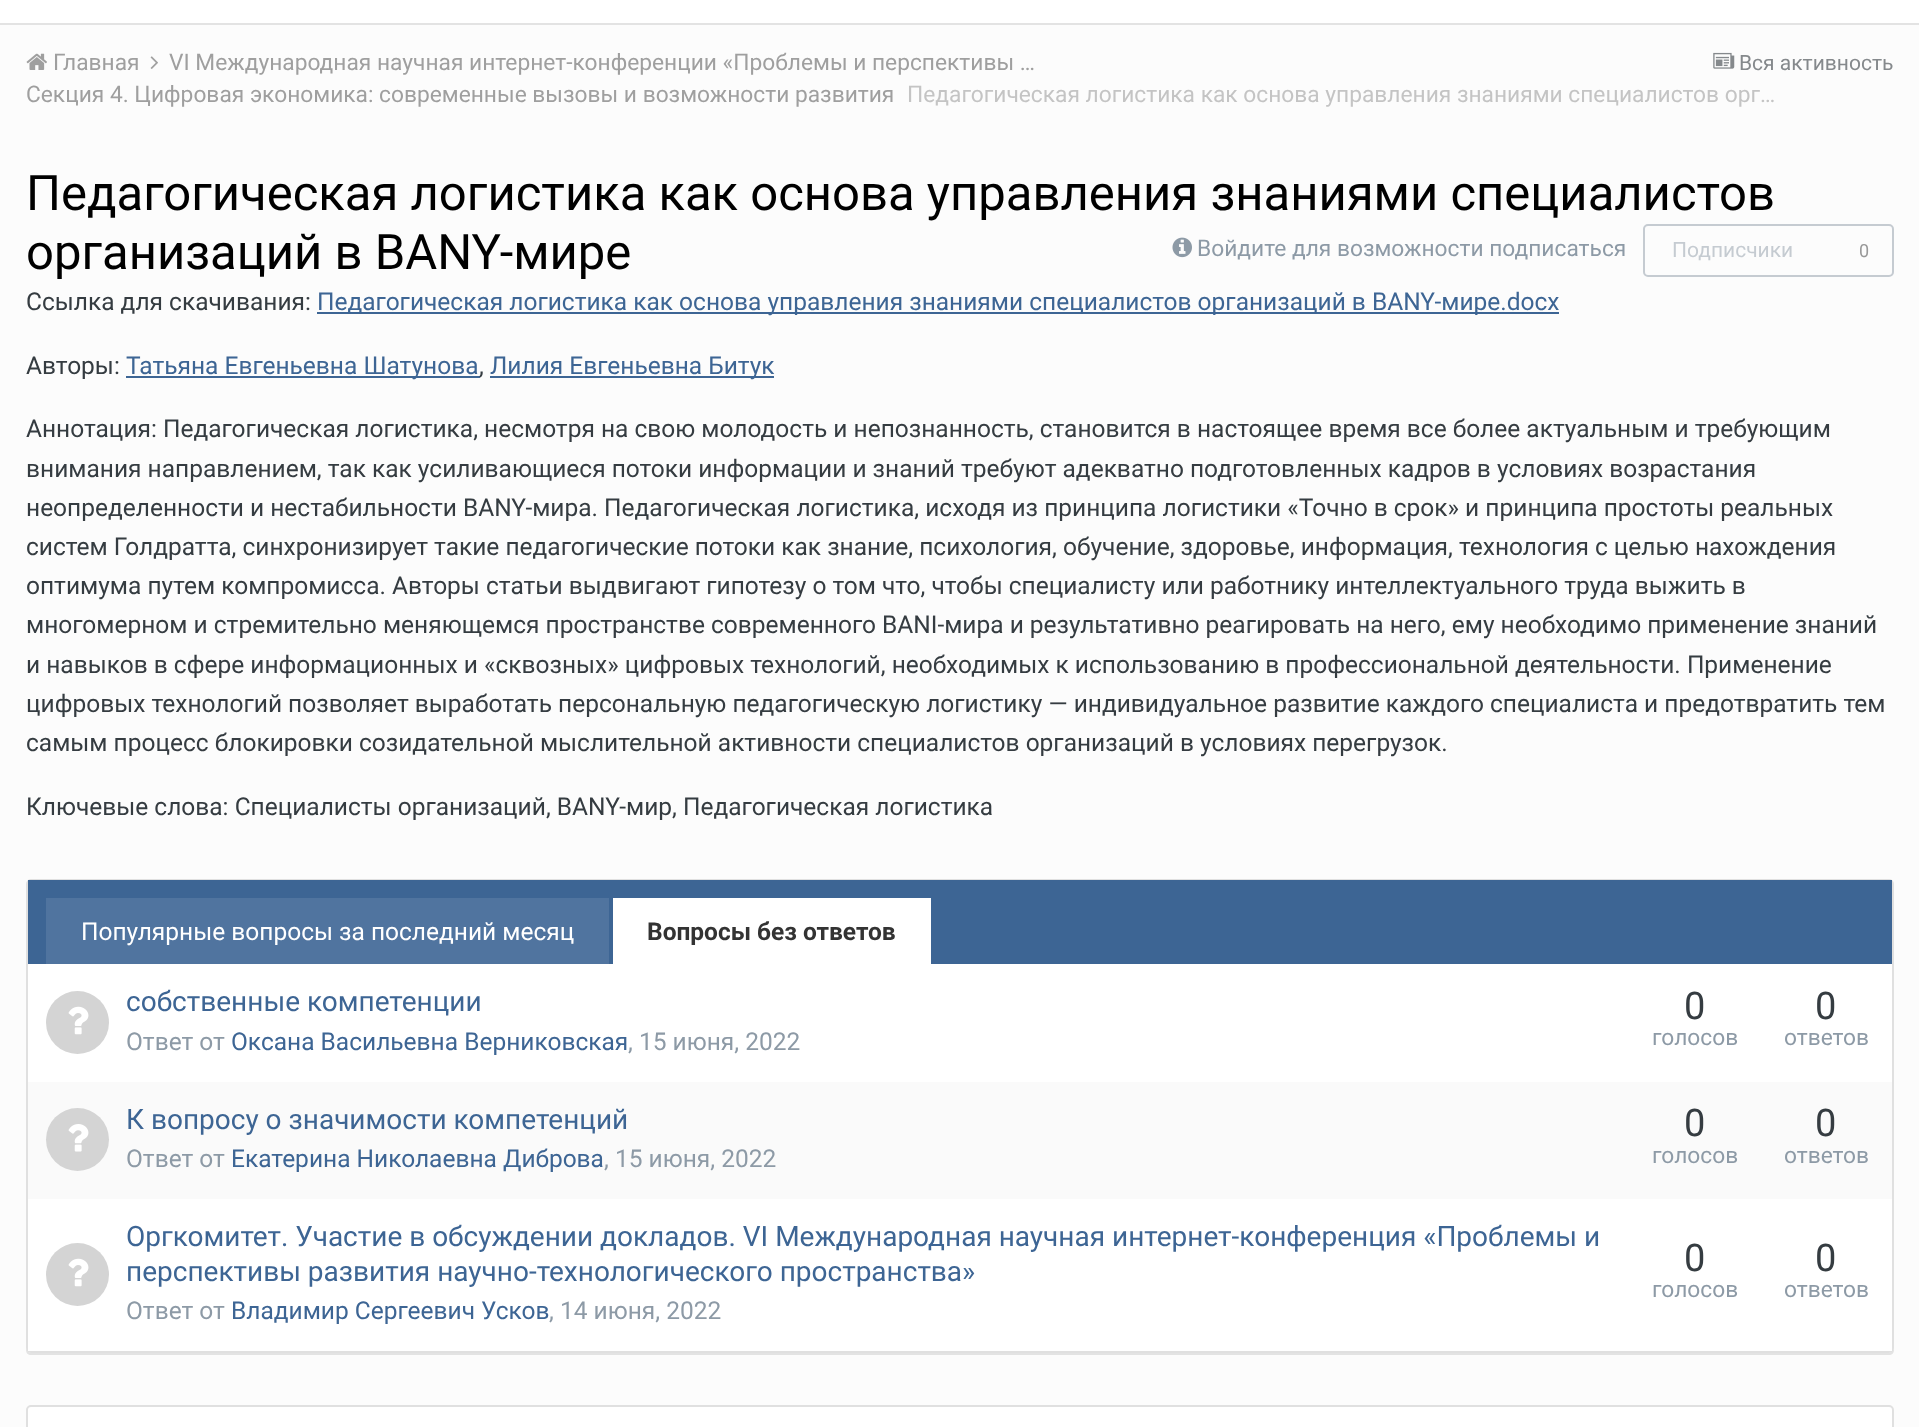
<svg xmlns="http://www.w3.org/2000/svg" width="1919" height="1427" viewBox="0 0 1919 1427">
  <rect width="100%" height="100%" fill="rgb(252,252,252)"/>
  <rect x="0" y="23" width="1919" height="2" fill="rgb(227,227,227)"/>
  <rect x="0" y="0" width="1919" height="23" fill="rgb(255,255,255)"/>
  <image x="26" y="53" width="21" height="17" href="pic1.png"/>
  <text x="53" y="70" font-family="Roboto" font-size="22.75" fill="rgb(159,159,159)">Главная</text>
  <image x="150" y="56" width="8" height="13" href="pic2.png"/>
  <g font-family="Roboto" font-size="22.75" fill="rgb(159,159,159)">
    <text x="169" y="70">VI Международная научная интернет-конференции «Проблемы и перспективы …</text>
    <text x="26" y="102">Секция 4. Цифровая экономика: современные вызовы и возможности развития</text>
  </g>
  <text x="907" y="102" font-family="Roboto" font-size="22.75" fill="rgb(196,196,196)">Педагогическая логистика как основа управления знаниями специалистов орг…</text>
  <image x="1713" y="52" width="22" height="17" href="pic3.png"/>
  <text x="1739" y="70" font-family="Roboto" font-size="21" fill="rgb(133,137,140)">Вся активность</text>
  <g font-family="Roboto" font-size="49" fill="rgb(0,0,0)">
    <text>
      <tspan x="26" y="210">Педагогическая логистика как основа управления знаниями специалистов</tspan>
      <tspan x="26" y="269">организаций в BANY-мире</tspan>
    </text>
  </g>
  <image x="1172" y="237" width="20" height="21" href="pic4.png"/>
  <text x="1197" y="256" font-family="Roboto" font-size="22.75" fill="rgb(141,154,166)">Войдите для возможности подписаться</text>
  <rect x="1644" y="225" width="249" height="51" rx="4" fill="none" stroke="rgb(197,203,209)" stroke-width="2"/>
  <text x="1672" y="257" font-family="Roboto" font-size="21" fill="rgb(197,203,209)">Подписчики</text>
  <text x="1859" y="257" font-family="Roboto" font-size="18" fill="rgb(152,152,152)">0</text>
  <text x="26" y="310" font-family="Roboto" font-size="24.5" fill="rgb(53,60,65)">Ссылка для скачивания:</text>
  <rect x="317" y="312" width="1242" height="2" fill="rgb(61,101,148)"/>
  <text x="317" y="310" font-family="Roboto" font-size="24.5" fill="rgb(61,101,148)">Педагогическая логистика как основа управления знаниями специалистов организаций в BANY-мире.docx</text>
  <text x="26" y="374" font-family="Roboto" font-size="24.5" fill="rgb(53,60,65)">Авторы:</text>
  <rect x="126" y="376" width="354" height="2" fill="rgb(61,101,148)"/>
  <text x="126" y="374" font-family="Roboto" font-size="24.5" fill="rgb(61,101,148)">Татьяна Евгеньевна Шатунова</text>
  <text x="479" y="374" font-family="Roboto" font-size="24.5" fill="rgb(53,60,65)">,</text>
  <rect x="490" y="376" width="284" height="2" fill="rgb(61,101,148)"/>
  <text x="490" y="374" font-family="Roboto" font-size="24.5" fill="rgb(61,101,148)">Лилия Евгеньевна Битук</text>
  <g font-family="Roboto" font-size="24.5" fill="rgb(53,60,65)">
    <text>
      <tspan x="26" y="437">Аннотация: Педагогическая логистика, несмотря на свою молодость и непознанность, становится в настоящее время все более актуальным и требующим</tspan>
      <tspan x="26" y="477">внимания направлением, так как усиливающиеся потоки информации и знаний требуют адекватно подготовленных кадров в условиях возрастания</tspan>
      <tspan x="26" y="516">неопределенности и нестабильности BANY-мира. Педагогическая логистика, исходя из принципа логистики «Точно в срок» и принципа простоты реальных</tspan>
      <tspan x="26" y="555">систем Голдратта, синхронизирует такие педагогические потоки как знание, психология, обучение, здоровье, информация, технология с целью нахождения</tspan>
      <tspan x="26" y="594">оптимума путем компромисса. Авторы статьи выдвигают гипотезу о том что, чтобы специалисту или работнику интеллектуального труда выжить в</tspan>
      <tspan x="26" y="633">многомерном и стремительно меняющемся пространстве современного BANI-мира и результативно реагировать на него, ему необходимо применение знаний</tspan>
      <tspan x="26" y="673">и навыков в сфере информационных и «сквозных» цифровых технологий, необходимых к использованию в профессиональной деятельности. Применение</tspan>
      <tspan x="26" y="712">цифровых технологий позволяет выработать персональную педагогическую логистику — индивидуальное развитие каждого специалиста и предотвратить тем</tspan>
      <tspan x="26" y="751">самым процесс блокировки созидательной мыслительной активности специалистов организаций в условиях перегрузок.</tspan>
    </text>
    <text x="26" y="815">Ключевые слова: Специалисты организаций, BANY-мир, Педагогическая логистика</text>
  </g>
  <path d="M26 883V1350C26 1353 28 1355 31 1355H1889C1892 1355 1894 1353 1894 1350V885L1893 883L1894 1348C1894 1350 1891 1353 1888 1353H32C29 1353 26 1350 26 1348Z" fill="rgb(227,227,227)"/>
  <rect x="27" y="880" width="1866" height="472" rx="4" fill="none" stroke="rgb(224,224,224)" stroke-width="2"/>
  <rect x="28" y="880" width="1864" height="84" fill="rgb(61,101,148)"/>
  <rect x="46" y="898" width="563" height="66" fill="rgb(80,116,159)"/>
  <text x="81" y="940" font-family="Roboto" font-size="24.5" fill="rgb(255,255,255)">Популярные вопросы за последний месяц</text>
  <rect x="613" y="898" width="318" height="66" fill="rgb(255,255,255)"/>
  <text x="647" y="940" font-family="Roboto" font-size="24.5" font-weight="bold" fill="rgb(51,51,51)">Вопросы без ответов</text>
  <rect x="28" y="964" width="1864" height="387" fill="rgb(255,255,255)"/>
  <circle cx="77.5" cy="1022.5" r="31.5" fill="rgb(212,212,212)"/>
  <image x="68" y="1006" width="21" height="29" href="pic5.png"/>
  <text x="126" y="1011" font-family="Roboto" font-size="28" fill="rgb(61,101,148)">собственные компетенции</text>
  <text x="126" y="1050" font-family="Roboto" font-size="24.5" fill="rgb(141,154,166)">Ответ от</text>
  <text x="231" y="1050" font-family="Roboto" font-size="24.5" fill="rgb(61,101,148)">Оксана Васильевна Верниковская</text>
  <text x="628" y="1050" font-family="Roboto" font-size="24.5" fill="rgb(141,154,166)">, 15 июня, 2022</text>
  <text x="1684" y="1019" font-family="Roboto" font-size="38" fill="rgb(53,60,65)">0</text>
  <text x="1652" y="1045" font-family="Roboto" font-size="22.75" fill="rgb(141,154,166)">голосов</text>
  <text x="1815" y="1019" font-family="Roboto" font-size="38" fill="rgb(53,60,65)">0</text>
  <text x="1784" y="1045" font-family="Roboto" font-size="22.75" fill="rgb(141,154,166)">ответов</text>
  <rect x="28" y="1082" width="1864" height="117" fill="rgb(250,250,250)"/>
  <circle cx="77.5" cy="1139.5" r="31.5" fill="rgb(212,212,212)"/>
  <image x="68" y="1124" width="21" height="28" href="pic6.png"/>
  <text x="126" y="1129" font-family="Roboto" font-size="28" fill="rgb(61,101,148)">К вопросу о значимости компетенций</text>
  <text x="126" y="1167" font-family="Roboto" font-size="24.5" fill="rgb(141,154,166)">Ответ от</text>
  <text x="231" y="1167" font-family="Roboto" font-size="24.5" fill="rgb(61,101,148)">Екатерина Николаевна Диброва</text>
  <text x="604" y="1167" font-family="Roboto" font-size="24.5" fill="rgb(141,154,166)">, 15 июня, 2022</text>
  <text x="1684" y="1136" font-family="Roboto" font-size="38" fill="rgb(53,60,65)">0</text>
  <text x="1652" y="1163" font-family="Roboto" font-size="22.75" fill="rgb(141,154,166)">голосов</text>
  <text x="1815" y="1136" font-family="Roboto" font-size="38" fill="rgb(53,60,65)">0</text>
  <text x="1784" y="1163" font-family="Roboto" font-size="22.75" fill="rgb(141,154,166)">ответов</text>
  <circle cx="77.5" cy="1274.5" r="31.5" fill="rgb(212,212,212)"/>
  <image x="68" y="1258" width="21" height="29" href="pic5.png"/>
  <g font-family="Roboto" font-size="28" fill="rgb(61,101,148)">
    <text>
      <tspan x="126" y="1246">Оргкомитет. Участие в обсуждении докладов. VI Международная научная интернет-конференция «Проблемы и</tspan>
      <tspan x="126" y="1281">перспективы развития научно-технологического пространства»</tspan>
    </text>
  </g>
  <text x="126" y="1319" font-family="Roboto" font-size="24.5" fill="rgb(141,154,166)">Ответ от</text>
  <text x="231" y="1319" font-family="Roboto" font-size="24.5" fill="rgb(61,101,148)">Владимир Сергеевич Усков</text>
  <text x="549" y="1319" font-family="Roboto" font-size="24.5" fill="rgb(141,154,166)">, 14 июня, 2022</text>
  <text x="1684" y="1271" font-family="Roboto" font-size="38" fill="rgb(53,60,65)">0</text>
  <text x="1652" y="1297" font-family="Roboto" font-size="22.75" fill="rgb(141,154,166)">голосов</text>
  <text x="1815" y="1271" font-family="Roboto" font-size="38" fill="rgb(53,60,65)">0</text>
  <text x="1784" y="1297" font-family="Roboto" font-size="22.75" fill="rgb(141,154,166)">ответов</text>
  <rect x="27" y="1406" width="1866" height="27" rx="4" fill="rgb(255,255,255)" stroke="rgb(224,224,224)" stroke-width="2"/>
</svg>
